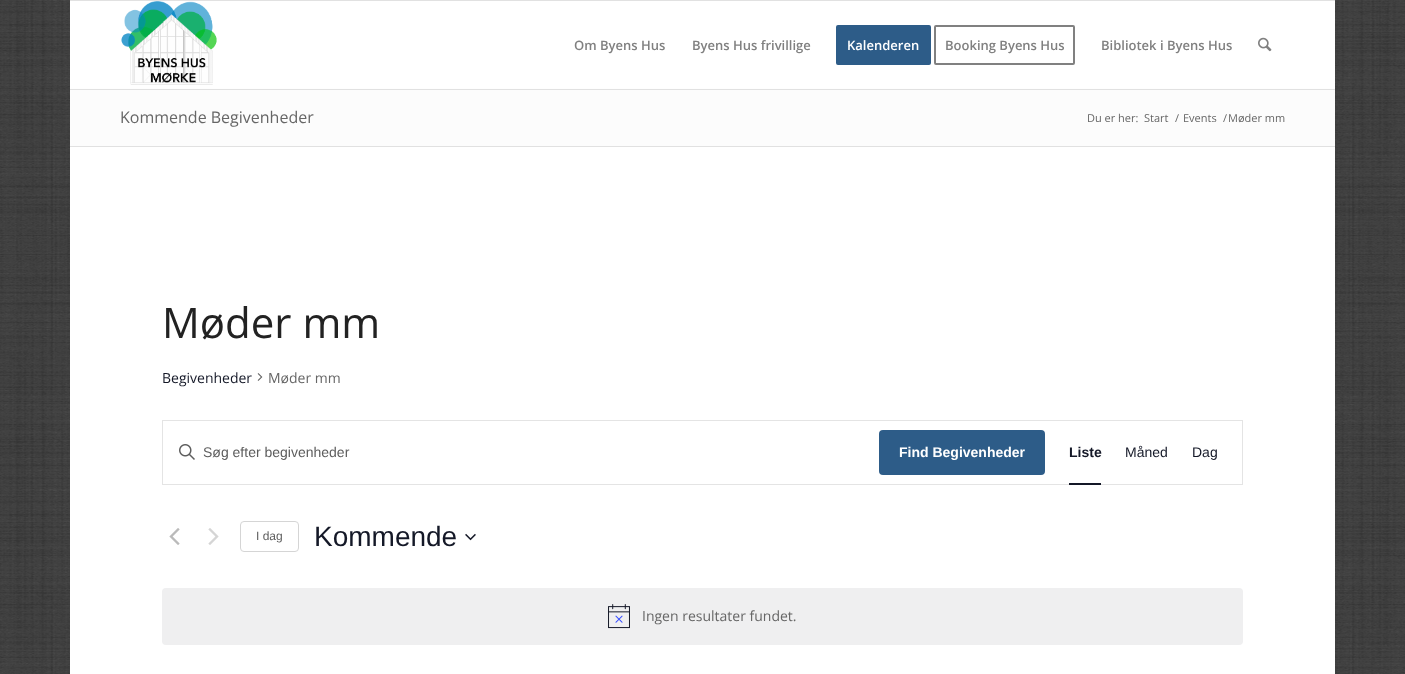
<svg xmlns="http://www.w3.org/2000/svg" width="1405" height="674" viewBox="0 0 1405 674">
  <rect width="100%" height="100%" fill="rgb(51,51,51)"/>
  <image x="0" y="0" width="1405" height="674" href="pic1.png"/>
  <rect x="70" y="0" width="1265" height="1" fill="rgb(225,225,225)"/>
  <rect x="70" y="1" width="1265" height="673" fill="rgb(255,255,255)"/>
  <image x="121" y="1" width="96" height="84" href="pic2.png"/>
  <g font-family="Open Sans" font-size="13" font-weight="600" fill="rgb(128,128,128)">
    <text x="574" y="50">Om Byens Hus</text>
    <text x="692" y="50">Byens Hus frivillige</text>
  </g>
  <rect x="837" y="26" width="93" height="38" rx="1" fill="rgb(45,92,136)" stroke="rgb(45,92,136)" stroke-width="2"/>
  <text x="847" y="50" font-family="Open Sans" font-size="13" font-weight="600" fill="rgb(255,255,255)">Kalenderen</text>
  <rect x="935" y="26" width="139" height="38" rx="1" fill="none" stroke="rgb(128,128,128)" stroke-width="2"/>
  <g font-family="Open Sans" font-size="13" font-weight="600" fill="rgb(128,128,128)">
    <text x="945" y="50">Booking Byens Hus</text>
    <text x="1101" y="50">Bibliotek i Byens Hus</text>
  </g>
  <image x="1258" y="37" width="14" height="15" href="pic3.png"/>
  <rect x="70" y="88" width="1265" height="2" fill="rgb(225,225,225)"/>
  <rect x="70" y="88" width="1265" height="1" fill="rgba(255,255,255,0.95)"/>
  <rect x="70" y="90" width="1265" height="56" fill="rgb(252,252,252)"/>
  <text x="120" y="123" font-family="Open Sans" font-size="16" fill="rgb(102,102,102)">Kommende Begivenheder</text>
  <g font-family="Open Sans" font-size="11" fill="rgb(102,102,102)">
    <text x="1087" y="122">Du er her:</text>
    <text x="1144" y="122">Start</text>
    <text x="1175" y="122">/</text>
    <text x="1183" y="122">Events</text>
    <text x="1223" y="122">/</text>
    <text x="1228" y="122">Møder mm</text>
  </g>
  <rect x="70" y="146" width="1265" height="1" fill="rgb(225,225,225)"/>
  <text x="162" y="338" font-family="Open Sans" font-size="42" fill="rgb(34,34,34)">Møder mm</text>
  <text x="162" y="383" font-family="Open Sans" font-size="14" fill="rgb(20,24,39)">Begivenheder</text>
  <image x="257" y="373" width="6" height="8" href="pic4.png"/>
  <text x="268" y="383" font-family="Open Sans" font-size="14" fill="rgb(102,102,102)">Møder mm</text>
  <rect x="162.5" y="420.5" width="1080" height="64" fill="none" stroke="rgb(228,228,228)"/>
  <image x="179" y="444" width="16" height="16" href="pic5.png"/>
  <text x="203" y="457" font-family="Liberation Sans" font-size="14" fill="rgb(93,93,93)">Søg efter begivenheder</text>
  <rect x="879" y="430" width="166" height="45" rx="4" fill="rgb(45,92,136)"/>
  <text x="899" y="457" font-family="Liberation Sans" font-size="14" font-weight="bold" fill="rgb(255,255,255)">Find Begivenheder</text>
  <text x="1069" y="457" font-family="Liberation Sans" font-size="14" font-weight="bold" fill="rgb(20,24,39)">Liste</text>
  <rect x="1069" y="483" width="32" height="2" fill="rgb(20,24,39)"/>
  <g font-family="Liberation Sans" font-size="14" fill="rgb(20,24,39)">
    <text x="1125" y="457">Måned</text>
    <text x="1192" y="457">Dag</text>
  </g>
  <image x="169" y="528" width="11" height="17" href="pic6.png"/>
  <image x="208" y="528" width="11" height="17" href="pic7.png"/>
  <rect x="240.5" y="521.5" width="58" height="30" rx="3.5" fill="none" stroke="rgb(213,213,213)"/>
  <text x="256" y="540" font-family="Liberation Sans" font-size="12" fill="rgb(93,93,93)">I dag</text>
  <text x="314" y="546" font-family="Liberation Sans" font-size="28" fill="rgb(20,24,39)">Kommende</text>
  <image x="465" y="533" width="11" height="8" href="pic8.png"/>
  <rect x="162" y="588" width="1081" height="57" rx="4" fill="rgb(239,239,240)"/>
  <image x="608" y="604" width="22" height="25" href="pic9.png"/>
  <text x="642" y="621" font-family="Open Sans" font-size="14" fill="rgb(102,102,102)">Ingen resultater fundet.</text>
</svg>
